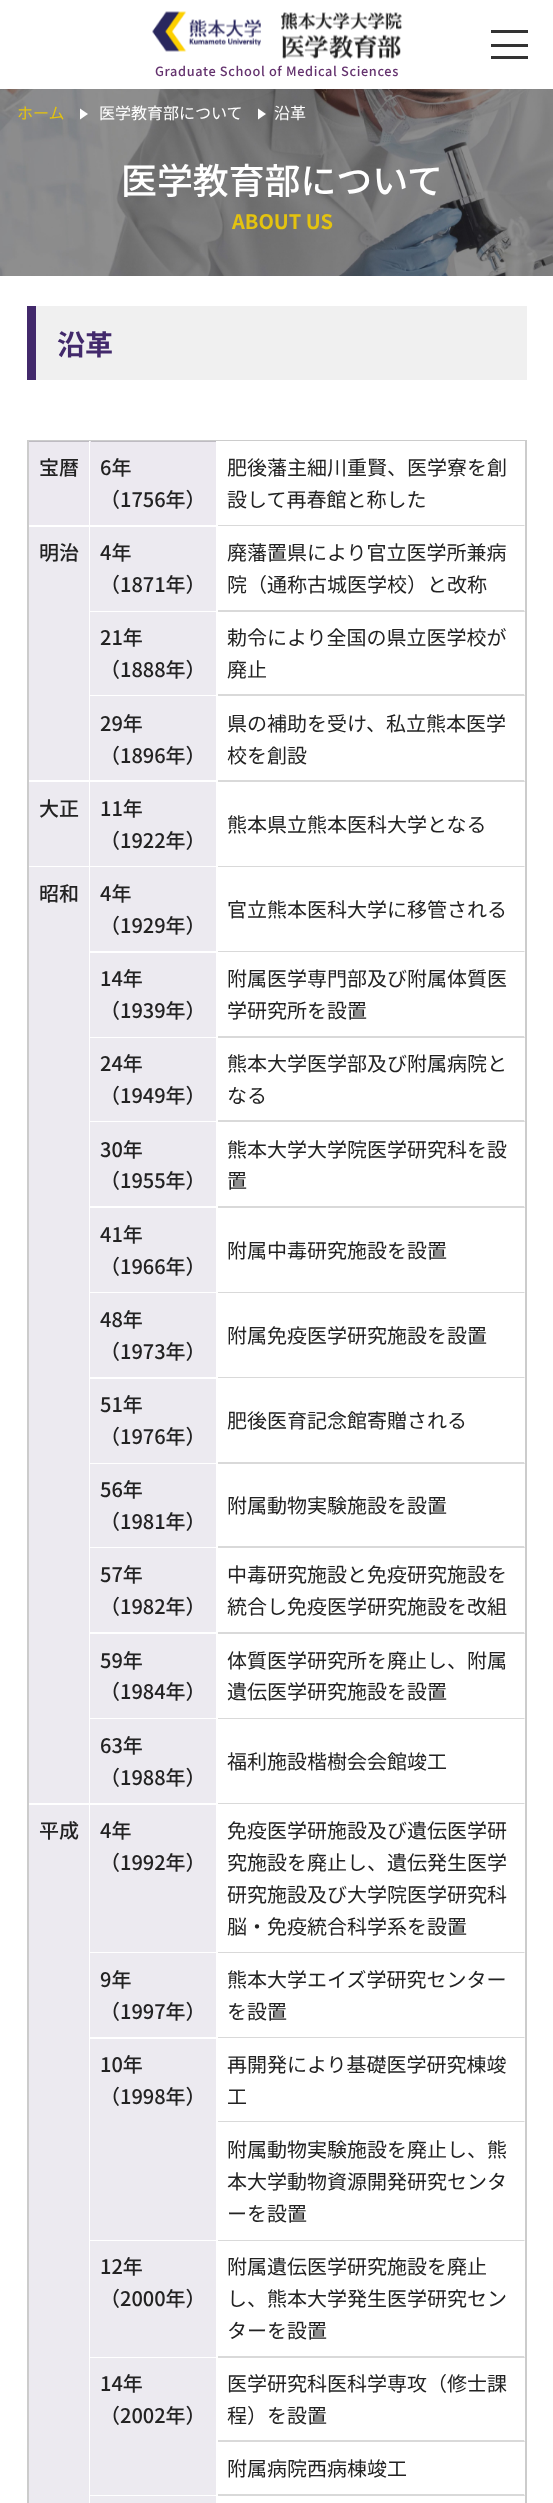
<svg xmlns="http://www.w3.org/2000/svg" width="553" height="2503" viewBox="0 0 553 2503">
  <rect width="100%" height="100%" fill="rgb(255,255,255)"/>
  <rect x="491" y="30" width="37" height="3" fill="rgb(51,51,51)"/>
  <rect x="491" y="44" width="37" height="3" fill="rgb(51,51,51)"/>
  <rect x="491" y="56" width="37" height="3" fill="rgb(51,51,51)"/>
  <image x="0" y="88" width="553" height="188" href="pic3.png"/>
  <rect x="0" y="88" width="553" height="1" fill="rgba(255,255,255,0.99)"/>
  <image x="152" y="11" width="109" height="41" href="pic1.png"/>
  <image x="281" y="12" width="121" height="47" href="pic2.png"/>
  <text x="155" y="76" font-family="Noto Sans JP" font-size="12.75" font-weight="500" letter-spacing="0.65" fill="rgb(100,50,110)">Graduate School of Medical Sciences</text>
  <text x="17" y="119" font-family="Noto Sans JP" font-size="16" fill="rgb(228,195,15)">ホーム</text>
  <path d="M80 119.5V108.5L88 114Z" fill="rgb(255,255,255)"/>
  <text x="99" y="119" font-family="Noto Sans JP" font-size="16" fill="rgb(255,255,255)">医学教育部について</text>
  <path d="M258 108.5L266 114L258 119.5Z" fill="rgb(255,255,255)"/>
  <text x="274" y="119" font-family="Noto Sans JP" font-size="16" fill="rgb(255,255,255)">沿革</text>
  <text x="121" y="194" font-family="Noto Sans JP" font-size="35.9" font-weight="500" fill="rgb(255,255,255)">医学教育部について</text>
  <text x="232" y="229" font-family="Noto Sans JP" font-size="20" font-weight="bold" fill="rgb(228,195,15)">ABOUT US</text>
  <rect x="36" y="306" width="491" height="74" fill="rgb(240,240,240)"/>
  <rect x="27" y="306" width="9" height="74" fill="rgb(66,41,107)"/>
  <text x="57" y="355" font-family="Noto Sans JP" font-size="28" font-weight="bold" fill="rgb(66,41,107)">沿革</text>
  <rect x="28" y="441" width="498" height="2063" fill="none" stroke="rgb(204,204,204)" stroke-width="2"/>
  <rect x="29" y="441" width="60" height="84" fill="rgba(66,41,107,0.1)"/>
  <rect x="89" y="441" width="2" height="1" fill="rgb(255,255,255)"/>
  <text x="39" y="475" font-family="Noto Sans JP" font-size="20" font-weight="500" fill="rgb(34,34,34)">宝暦</text>
  <rect x="90" y="441" width="126" height="84" fill="rgba(66,41,107,0.1)"/>
  <rect x="216" y="441" width="309" height="1" fill="rgb(255,255,255)"/>
  <g font-family="Noto Sans JP" font-size="20" font-weight="500" fill="rgb(34,34,34)">
    <text>
      <tspan x="100" y="475">6年</tspan>
      <tspan x="100" y="507">（1756年）</tspan>
    </text>
  </g>
  <path d="M525 526H218V525H524Z" fill="rgb(217,217,217)"/>
  <g font-family="Noto Sans JP" font-size="20" fill="rgb(34,34,34)">
    <text>
      <tspan x="227" y="475">肥後藩主細川重賢、医学寮を創</tspan>
      <tspan x="227" y="507">設して再春館と称した</tspan>
    </text>
  </g>
  <rect x="29" y="527" width="60" height="253" fill="rgb(236,234,240)"/>
  <text x="39" y="560" font-family="Noto Sans JP" font-size="20" font-weight="500" fill="rgb(34,34,34)">明治</text>
  <rect x="90" y="527" width="126" height="84" fill="rgb(236,234,240)"/>
  <g font-family="Noto Sans JP" font-size="20" font-weight="500" fill="rgb(34,34,34)">
    <text>
      <tspan x="100" y="560">4年</tspan>
      <tspan x="100" y="592">（1871年）</tspan>
    </text>
  </g>
  <path d="M525 612H218V610H524Z" fill="rgb(217,217,217)"/>
  <g font-family="Noto Sans JP" font-size="20" fill="rgb(34,34,34)">
    <text>
      <tspan x="227" y="560">廃藩置県により官立医学所兼病</tspan>
      <tspan x="227" y="592">院（通称古城医学校）と改称</tspan>
    </text>
  </g>
  <rect x="90" y="612" width="126" height="83" fill="rgb(236,234,240)"/>
  <g font-family="Noto Sans JP" font-size="20" font-weight="500" fill="rgb(34,34,34)">
    <text>
      <tspan x="100" y="645">21年</tspan>
      <tspan x="100" y="677">（1888年）</tspan>
    </text>
  </g>
  <path d="M525 696H218V694H524Z" fill="rgb(217,217,217)"/>
  <g font-family="Noto Sans JP" font-size="20" fill="rgb(34,34,34)">
    <text>
      <tspan x="227" y="645">勅令により全国の県立医学校が</tspan>
      <tspan x="227" y="677">廃止</tspan>
    </text>
  </g>
  <rect x="90" y="696" width="126" height="84" fill="rgb(236,234,240)"/>
  <g font-family="Noto Sans JP" font-size="20" font-weight="500" fill="rgb(34,34,34)">
    <text>
      <tspan x="100" y="731">29年</tspan>
      <tspan x="100" y="763">（1896年）</tspan>
    </text>
  </g>
  <path d="M525 782H218V780H524Z" fill="rgb(217,217,217)"/>
  <g font-family="Noto Sans JP" font-size="20" fill="rgb(34,34,34)">
    <text>
      <tspan x="227" y="731">県の補助を受け、私立熊本医学</tspan>
      <tspan x="227" y="763">校を創設</tspan>
    </text>
  </g>
  <rect x="29" y="782" width="60" height="84" fill="rgb(236,234,240)"/>
  <text x="39" y="816" font-family="Noto Sans JP" font-size="20" font-weight="500" fill="rgb(34,34,34)">大正</text>
  <rect x="90" y="782" width="126" height="84" fill="rgb(236,234,240)"/>
  <g font-family="Noto Sans JP" font-size="20" font-weight="500" fill="rgb(34,34,34)">
    <text>
      <tspan x="100" y="816">11年</tspan>
      <tspan x="100" y="848">（1922年）</tspan>
    </text>
  </g>
  <path d="M525 867H218V866H524Z" fill="rgb(217,217,217)"/>
  <text x="227" y="832" font-family="Noto Sans JP" font-size="20" fill="rgb(34,34,34)">熊本県立熊本医科大学となる</text>
  <rect x="29" y="867" width="60" height="936" fill="rgb(236,234,240)"/>
  <text x="39" y="901" font-family="Noto Sans JP" font-size="20" font-weight="500" fill="rgb(34,34,34)">昭和</text>
  <rect x="90" y="867" width="126" height="84" fill="rgb(236,234,240)"/>
  <g font-family="Noto Sans JP" font-size="20" font-weight="500" fill="rgb(34,34,34)">
    <text>
      <tspan x="100" y="901">4年</tspan>
      <tspan x="100" y="933">（1929年）</tspan>
    </text>
  </g>
  <path d="M525 952H218V951H524Z" fill="rgb(217,217,217)"/>
  <text x="227" y="917" font-family="Noto Sans JP" font-size="20" fill="rgb(34,34,34)">官立熊本医科大学に移管される</text>
  <rect x="90" y="953" width="126" height="84" fill="rgb(236,234,240)"/>
  <g font-family="Noto Sans JP" font-size="20" font-weight="500" fill="rgb(34,34,34)">
    <text>
      <tspan x="100" y="986">14年</tspan>
      <tspan x="100" y="1018">（1939年）</tspan>
    </text>
  </g>
  <path d="M525 1038H218V1036H524Z" fill="rgb(217,217,217)"/>
  <g font-family="Noto Sans JP" font-size="20" fill="rgb(34,34,34)">
    <text>
      <tspan x="227" y="986">附属医学専門部及び附属体質医</tspan>
      <tspan x="227" y="1018">学研究所を設置</tspan>
    </text>
  </g>
  <rect x="90" y="1038" width="126" height="83" fill="rgb(236,234,240)"/>
  <g font-family="Noto Sans JP" font-size="20" font-weight="500" fill="rgb(34,34,34)">
    <text>
      <tspan x="100" y="1071">24年</tspan>
      <tspan x="100" y="1103">（1949年）</tspan>
    </text>
  </g>
  <path d="M525 1122H218V1120H524Z" fill="rgb(217,217,217)"/>
  <g font-family="Noto Sans JP" font-size="20" fill="rgb(34,34,34)">
    <text>
      <tspan x="227" y="1071">熊本大学医学部及び附属病院と</tspan>
      <tspan x="227" y="1103">なる</tspan>
    </text>
  </g>
  <rect x="90" y="1122" width="126" height="84" fill="rgb(236,234,240)"/>
  <g font-family="Noto Sans JP" font-size="20" font-weight="500" fill="rgb(34,34,34)">
    <text>
      <tspan x="100" y="1157">30年</tspan>
      <tspan x="100" y="1188">（1955年）</tspan>
    </text>
  </g>
  <path d="M525 1208H218V1206H524Z" fill="rgb(217,217,217)"/>
  <g font-family="Noto Sans JP" font-size="20" fill="rgb(34,34,34)">
    <text>
      <tspan x="227" y="1157">熊本大学大学院医学研究科を設</tspan>
      <tspan x="227" y="1188">置</tspan>
    </text>
  </g>
  <rect x="90" y="1208" width="126" height="84" fill="rgb(236,234,240)"/>
  <g font-family="Noto Sans JP" font-size="20" font-weight="500" fill="rgb(34,34,34)">
    <text>
      <tspan x="100" y="1242">41年</tspan>
      <tspan x="100" y="1274">（1966年）</tspan>
    </text>
  </g>
  <path d="M525 1293H218V1292H524Z" fill="rgb(217,217,217)"/>
  <text x="227" y="1258" font-family="Noto Sans JP" font-size="20" fill="rgb(34,34,34)">附属中毒研究施設を設置</text>
  <rect x="90" y="1293" width="126" height="84" fill="rgb(236,234,240)"/>
  <g font-family="Noto Sans JP" font-size="20" font-weight="500" fill="rgb(34,34,34)">
    <text>
      <tspan x="100" y="1327">48年</tspan>
      <tspan x="100" y="1359">（1973年）</tspan>
    </text>
  </g>
  <path d="M525 1378H218V1377H524Z" fill="rgb(217,217,217)"/>
  <text x="227" y="1343" font-family="Noto Sans JP" font-size="20" fill="rgb(34,34,34)">附属免疫医学研究施設を設置</text>
  <rect x="90" y="1379" width="126" height="84" fill="rgb(236,234,240)"/>
  <g font-family="Noto Sans JP" font-size="20" font-weight="500" fill="rgb(34,34,34)">
    <text>
      <tspan x="100" y="1412">51年</tspan>
      <tspan x="100" y="1444">（1976年）</tspan>
    </text>
  </g>
  <path d="M525 1464H218V1462H524Z" fill="rgb(217,217,217)"/>
  <text x="227" y="1428" font-family="Noto Sans JP" font-size="20" fill="rgb(34,34,34)">肥後医育記念館寄贈される</text>
  <rect x="90" y="1464" width="126" height="83" fill="rgb(236,234,240)"/>
  <g font-family="Noto Sans JP" font-size="20" font-weight="500" fill="rgb(34,34,34)">
    <text>
      <tspan x="100" y="1497">56年</tspan>
      <tspan x="100" y="1529">（1981年）</tspan>
    </text>
  </g>
  <path d="M525 1548H218V1546H524Z" fill="rgb(217,217,217)"/>
  <text x="227" y="1513" font-family="Noto Sans JP" font-size="20" fill="rgb(34,34,34)">附属動物実験施設を設置</text>
  <rect x="90" y="1548" width="126" height="84" fill="rgb(236,234,240)"/>
  <g font-family="Noto Sans JP" font-size="20" font-weight="500" fill="rgb(34,34,34)">
    <text>
      <tspan x="100" y="1582">57年</tspan>
      <tspan x="100" y="1614">（1982年）</tspan>
    </text>
  </g>
  <path d="M525 1634H218V1632H524Z" fill="rgb(217,217,217)"/>
  <g font-family="Noto Sans JP" font-size="20" fill="rgb(34,34,34)">
    <text>
      <tspan x="227" y="1582">中毒研究施設と免疫研究施設を</tspan>
      <tspan x="227" y="1614">統合し免疫医学研究施設を改組</tspan>
    </text>
  </g>
  <rect x="90" y="1634" width="126" height="84" fill="rgb(236,234,240)"/>
  <g font-family="Noto Sans JP" font-size="20" font-weight="500" fill="rgb(34,34,34)">
    <text>
      <tspan x="100" y="1668">59年</tspan>
      <tspan x="100" y="1699">（1984年）</tspan>
    </text>
  </g>
  <path d="M525 1719H218V1718H524Z" fill="rgb(217,217,217)"/>
  <g font-family="Noto Sans JP" font-size="20" fill="rgb(34,34,34)">
    <text>
      <tspan x="227" y="1668">体質医学研究所を廃止し、附属</tspan>
      <tspan x="227" y="1699">遺伝医学研究施設を設置</tspan>
    </text>
  </g>
  <rect x="90" y="1719" width="126" height="84" fill="rgb(236,234,240)"/>
  <g font-family="Noto Sans JP" font-size="20" font-weight="500" fill="rgb(34,34,34)">
    <text>
      <tspan x="100" y="1753">63年</tspan>
      <tspan x="100" y="1785">（1988年）</tspan>
    </text>
  </g>
  <path d="M525 1804H218V1803H524Z" fill="rgb(217,217,217)"/>
  <text x="227" y="1769" font-family="Noto Sans JP" font-size="20" fill="rgb(34,34,34)">福利施設楷樹会会館竣工</text>
  <rect x="29" y="1805" width="60" height="698" fill="rgb(236,234,240)"/>
  <text x="39" y="1838" font-family="Noto Sans JP" font-size="20" font-weight="500" fill="rgb(34,34,34)">平成</text>
  <rect x="90" y="1805" width="126" height="147" fill="rgb(236,234,240)"/>
  <g font-family="Noto Sans JP" font-size="20" font-weight="500" fill="rgb(34,34,34)">
    <text>
      <tspan x="100" y="1838">4年</tspan>
      <tspan x="100" y="1870">（1992年）</tspan>
    </text>
  </g>
  <path d="M525 1953H218V1952H524Z" fill="rgb(217,217,217)"/>
  <g font-family="Noto Sans JP" font-size="20" fill="rgb(34,34,34)">
    <text>
      <tspan x="227" y="1838">免疫医学研施設及び遺伝医学研</tspan>
      <tspan x="227" y="1870">究施設を廃止し、遺伝発生医学</tspan>
      <tspan x="227" y="1902">研究施設及び大学院医学研究科</tspan>
      <tspan x="227" y="1934">脳・免疫統合科学系を設置</tspan>
    </text>
  </g>
  <rect x="90" y="1953" width="126" height="84" fill="rgb(236,234,240)"/>
  <g font-family="Noto Sans JP" font-size="20" font-weight="500" fill="rgb(34,34,34)">
    <text>
      <tspan x="100" y="1987">9年</tspan>
      <tspan x="100" y="2019">（1997年）</tspan>
    </text>
  </g>
  <path d="M525 2038H218V2037H524Z" fill="rgb(217,217,217)"/>
  <g font-family="Noto Sans JP" font-size="20" fill="rgb(34,34,34)">
    <text>
      <tspan x="227" y="1987">熊本大学エイズ学研究センター</tspan>
      <tspan x="227" y="2019">を設置</tspan>
    </text>
  </g>
  <rect x="90" y="2039" width="126" height="201" fill="rgb(236,234,240)"/>
  <g font-family="Noto Sans JP" font-size="20" font-weight="500" fill="rgb(34,34,34)">
    <text>
      <tspan x="100" y="2072">10年</tspan>
      <tspan x="100" y="2104">（1998年）</tspan>
    </text>
  </g>
  <path d="M525 2122H218V2121H524Z" fill="rgb(217,217,217)"/>
  <g font-family="Noto Sans JP" font-size="20" fill="rgb(34,34,34)">
    <text>
      <tspan x="227" y="2072">再開発により基礎医学研究棟竣</tspan>
      <tspan x="227" y="2104">工</tspan>
    </text>
  </g>
  <path d="M525 2241H218V2240H524Z" fill="rgb(217,217,217)"/>
  <g font-family="Noto Sans JP" font-size="20" fill="rgb(34,34,34)">
    <text>
      <tspan x="227" y="2157">附属動物実験施設を廃止し、熊</tspan>
      <tspan x="227" y="2189">本大学動物資源開発研究センタ</tspan>
      <tspan x="227" y="2221">ーを設置</tspan>
    </text>
  </g>
  <rect x="90" y="2241" width="126" height="116" fill="rgb(236,234,240)"/>
  <g font-family="Noto Sans JP" font-size="20" font-weight="500" fill="rgb(34,34,34)">
    <text>
      <tspan x="100" y="2274">12年</tspan>
      <tspan x="100" y="2306">（2000年）</tspan>
    </text>
  </g>
  <path d="M525 2358H218V2356H524Z" fill="rgb(217,217,217)"/>
  <g font-family="Noto Sans JP" font-size="20" fill="rgb(34,34,34)">
    <text>
      <tspan x="227" y="2274">附属遺伝医学研究施設を廃止</tspan>
      <tspan x="227" y="2306">し、熊本大学発生医学研究セン</tspan>
      <tspan x="227" y="2338">ターを設置</tspan>
    </text>
  </g>
  <rect x="90" y="2358" width="126" height="137" fill="rgb(236,234,240)"/>
  <g font-family="Noto Sans JP" font-size="20" font-weight="500" fill="rgb(34,34,34)">
    <text>
      <tspan x="100" y="2391">14年</tspan>
      <tspan x="100" y="2423">（2002年）</tspan>
    </text>
  </g>
  <path d="M525 2442H218V2440H524Z" fill="rgb(217,217,217)"/>
  <g font-family="Noto Sans JP" font-size="20" fill="rgb(34,34,34)">
    <text>
      <tspan x="227" y="2391">医学研究科医科学専攻（修士課</tspan>
      <tspan x="227" y="2423">程）を設置</tspan>
    </text>
  </g>
  <path d="M525 2496H218V2494H524Z" fill="rgb(217,217,217)"/>
  <text x="227" y="2476" font-family="Noto Sans JP" font-size="20" fill="rgb(34,34,34)">附属病院西病棟竣工</text>
  <rect x="90" y="2496" width="128" height="7" fill="rgb(236,234,240)"/>
  <rect x="216" y="2496" width="2" height="7" fill="rgb(255,255,255)"/>
</svg>
